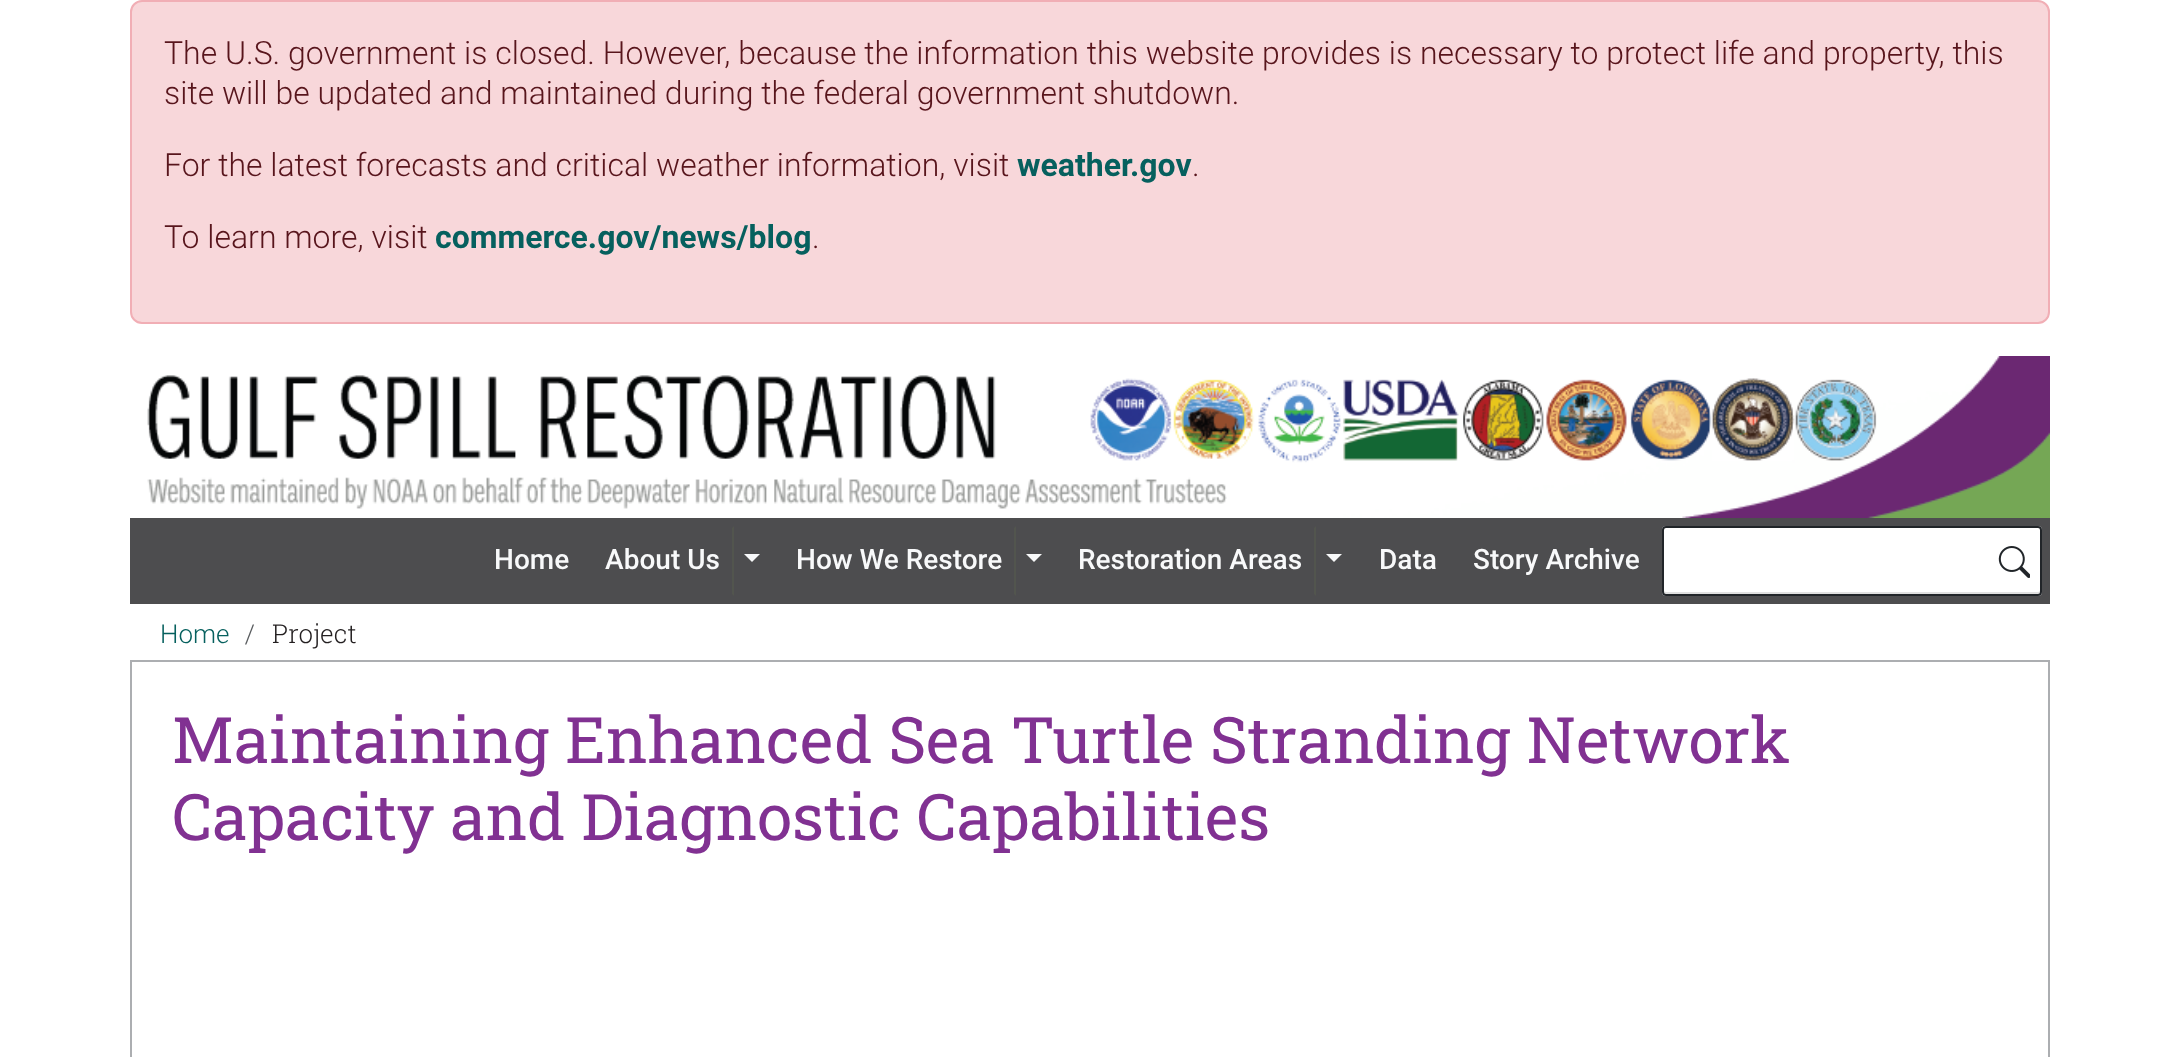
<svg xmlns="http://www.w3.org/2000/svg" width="2180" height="1057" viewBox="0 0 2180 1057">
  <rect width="100%" height="100%" fill="rgb(255,255,255)"/>
  <rect x="131" y="1" width="1918" height="322" rx="11" fill="rgb(248,215,218)" stroke="rgb(241,174,181)" stroke-width="2"/>
  <g font-family="Roboto" font-size="32" font-weight="300" fill="rgb(88,21,28)">
    <text>
      <tspan x="164" y="64">The U.S. government is closed. However, because the information this website provides is necessary to protect life and property, this</tspan>
      <tspan x="164" y="104">site will be updated and maintained during the federal government shutdown.</tspan>
    </text>
    <text x="164" y="176">For the latest forecasts and critical weather information, visit</text>
  </g>
  <text x="1017" y="176" font-family="Roboto" font-size="32" font-weight="bold" fill="rgb(6,96,94)">weather.gov</text>
  <g font-family="Roboto" font-size="32" font-weight="300" fill="rgb(88,21,28)">
    <text x="1192" y="176">.</text>
    <text x="164" y="248">To learn more, visit</text>
  </g>
  <text x="435" y="248" font-family="Roboto" font-size="32" font-weight="bold" fill="rgb(6,96,94)">commerce.gov/news/blog</text>
  <text x="812" y="248" font-family="Roboto" font-size="32" font-weight="300" fill="rgb(88,21,28)">.</text>
  <image x="147" y="356" width="1903" height="162" href="pic1.png"/>
  <rect x="130" y="518" width="1920" height="86" fill="rgb(77,77,79)"/>
  <text x="494" y="569" font-family="Roboto" font-size="28" font-weight="500" fill="rgb(248,249,250)">Home</text>
  <path d="M734 526L732 528V594L734 596Z" fill="rgb(82,85,78)"/>
  <text x="605" y="569" font-family="Roboto" font-size="28" font-weight="500" fill="rgb(248,249,250)">About Us</text>
  <path d="M744 554H760L752 562Z" fill="rgb(248,249,250)"/>
  <path d="M1016 526L1014 528V594L1016 596Z" fill="rgb(82,85,78)"/>
  <text x="796" y="569" font-family="Roboto" font-size="28" font-weight="500" fill="rgb(248,249,250)">How We Restore</text>
  <path d="M1026 554H1042L1034 562Z" fill="rgb(248,249,250)"/>
  <path d="M1316 526L1314 528V594L1316 596Z" fill="rgb(82,85,78)"/>
  <text x="1078" y="569" font-family="Roboto" font-size="28" font-weight="500" fill="rgb(248,249,250)">Restoration Areas</text>
  <path d="M1326 554H1342L1334 562Z" fill="rgb(248,249,250)"/>
  <g font-family="Roboto" font-size="28" font-weight="500" fill="rgb(248,249,250)">
    <text x="1379" y="569">Data</text>
    <text x="1473" y="569">Story Archive</text>
  </g>
  <rect x="1662" y="526" width="380" height="70" rx="4" fill="rgb(255,255,255)"/>
  <path d="M1664 590V592C1664 593 1665 594 1666 594H2038C2039 594 2040 593 2040 592V590C2040 591 2039 592 2038 592H1666C1665 592 1664 591 1664 590Z" fill="rgb(224,224,224)"/>
  <rect x="1663" y="527" width="378" height="68" rx="3" fill="none" stroke="rgb(33,37,41)" stroke-width="2"/>
  <image x="1998" y="546" width="32" height="32" href="pic2.png"/>
  <text x="160" y="643" font-family="Roboto" font-size="26" font-weight="300" fill="rgb(6,96,94)">Home</text>
  <text x="245" y="643" font-family="Roboto Slab" font-size="26" font-weight="300" fill="rgb(89,92,95)">/</text>
  <text x="272" y="643" font-family="Roboto Slab" font-size="26" font-weight="300" fill="rgb(35,31,32)">Project</text>
  <rect x="131" y="661" width="1918" height="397" fill="none" stroke="rgb(172,174,177)" stroke-width="2"/>
  <g font-family="Roboto Slab" font-size="64" fill="rgb(129,49,146)">
    <text>
      <tspan x="172" y="763">Maintaining Enhanced Sea Turtle Stranding Network</tspan>
      <tspan x="172" y="840">Capacity and Diagnostic Capabilities</tspan>
    </text>
  </g>
</svg>
